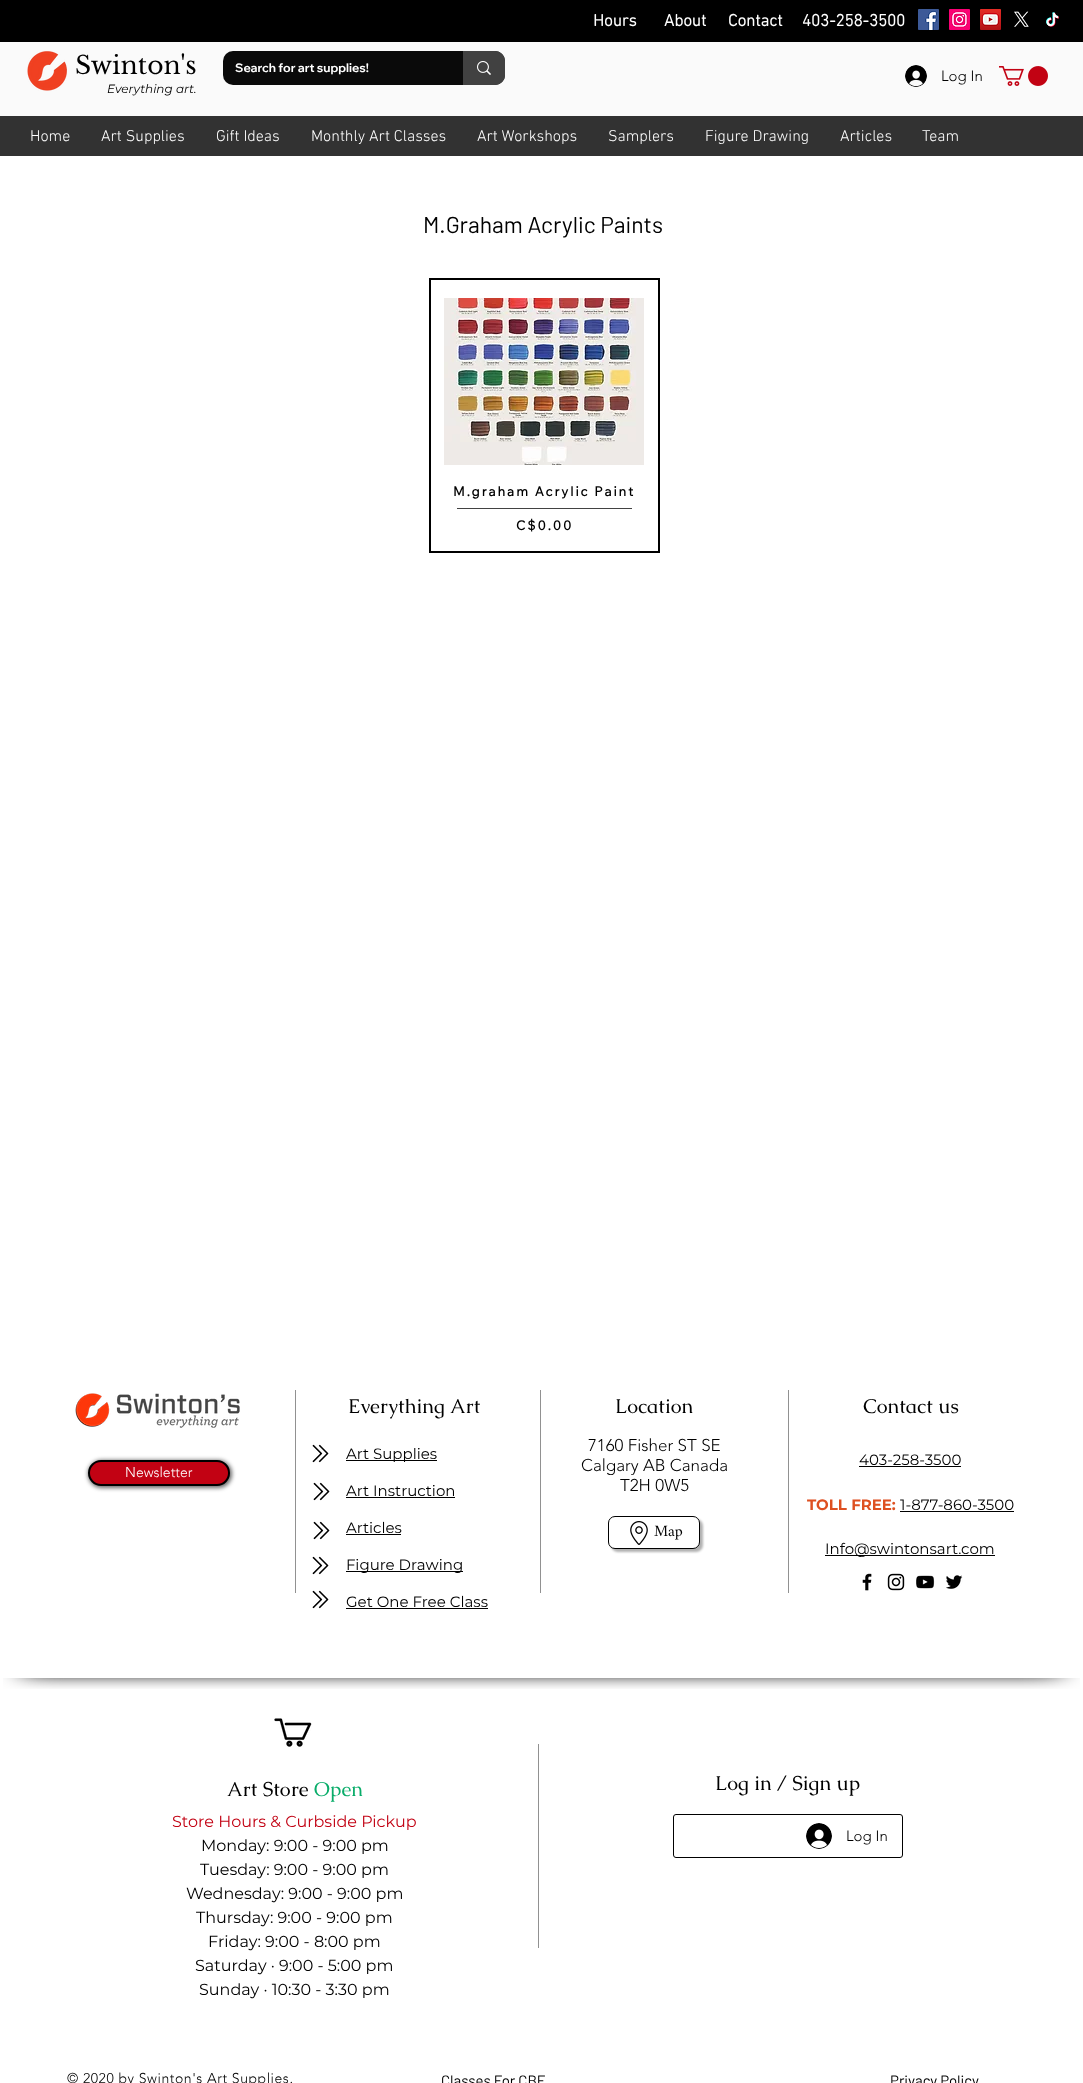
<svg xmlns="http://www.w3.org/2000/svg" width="1083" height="2083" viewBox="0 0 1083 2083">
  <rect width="100%" height="100%" fill="rgb(255,255,255)"/>
  <rect x="0" y="0" width="1083" height="42" fill="rgb(0,0,0)"/>
  <g font-family="'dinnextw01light'" font-size="17" font-weight="bold" fill="rgb(255,255,255)">
    <text x="593" y="26">Hours</text>
    <text x="664" y="26">About</text>
    <text x="728" y="26">Contact</text>
    <text x="802" y="26">403-258-3500</text>
  </g>
  <image x="918" y="9" width="21" height="21" href="pic1.png"/>
  <image x="949" y="9" width="21" height="21" href="pic2.png"/>
  <image x="980" y="9" width="21" height="21" href="pic3.png"/>
  <image x="1014" y="11" width="15" height="16" href="pic4.png"/>
  <image x="1046" y="12" width="13" height="15" href="pic5.png"/>
  <rect x="0" y="42" width="1083" height="74" fill="rgb(250,250,250)"/>
  <image x="27" y="51" width="40" height="40" href="pic6.png"/>
  <text x="75" y="74" font-family="Libre Baskerville" font-size="25" fill="rgb(0,0,0)">Swinton's</text>
  <text x="107" y="93" font-family="Montserrat" font-size="12" font-style="italic" fill="rgb(0,0,0)">Everything art.</text>
  <rect x="223" y="51" width="282" height="34" rx="10" fill="rgb(10,10,10)"/>
  <text x="235" y="72" font-family="Wix Madefor Display" font-size="12" font-weight="bold" fill="rgb(255,255,255)">Search for art supplies!</text>
  <path d="M463 51H495C500.5 51 505 55.5 505 61V75C505 80.5 500.5 85 495 85H463Z" fill="rgb(65,65,65)"/>
  <image x="477" y="61" width="14" height="14" href="pic7.png"/>
  <image x="905" y="65" width="22" height="22" href="pic8.png"/>
  <text x="941" y="81" font-family="'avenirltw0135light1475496'" font-size="15" font-weight="300" fill="rgb(0,0,0)">Log In</text>
  <image x="999" y="66" width="49" height="20" href="pic9.png"/>
  <rect x="0" y="116" width="1083" height="40" fill="rgb(50,50,50)"/>
  <g font-family="'dinnextw01light'" font-size="16" font-weight="300" fill="rgb(255,255,255)">
    <text x="30" y="141">Home</text>
    <text x="101" y="141">Art Supplies</text>
    <text x="216" y="141">Gift Ideas</text>
    <text x="311" y="141">Monthly Art Classes</text>
    <text x="477" y="141">Art Workshops</text>
    <text x="608" y="141">Samplers</text>
    <text x="705" y="141">Figure Drawing</text>
    <text x="840" y="141">Articles</text>
    <text x="922" y="141">Team</text>
  </g>
  <text x="423" y="233" font-family="Barlow" font-size="23" fill="rgb(0,0,0)">M.Graham Acrylic Paints</text>
  <rect x="430" y="279" width="229" height="273" fill="none" stroke="rgb(0,0,0)" stroke-width="2"/>
  <image x="444" y="298" width="200" height="167" href="pic10.png"/>
  <text x="453" y="496" font-family="Wix Madefor Text" font-size="13" font-weight="bold" letter-spacing="1.95" fill="rgb(0,0,0)">M.graham Acrylic Paint</text>
  <rect x="457" y="508" width="175" height="1" fill="rgb(66,66,66)"/>
  <text x="516" y="530" font-family="Wix Madefor Text" font-size="13" font-weight="bold" letter-spacing="1.95" fill="rgb(0,0,0)">C$0.00</text>
  <image x="75" y="1393" width="165" height="35" href="pic11.png"/>
  <rect x="295" y="1390" width="1" height="203" fill="rgb(145,145,145)"/>
  <text x="348" y="1413" font-family="Caudex" font-size="20" fill="rgb(0,0,0)">Everything Art</text>
  <rect x="540" y="1390" width="1" height="203" fill="rgb(145,145,145)"/>
  <text x="615" y="1413" font-family="Caudex" font-size="20" fill="rgb(0,0,0)">Location</text>
  <rect x="788" y="1390" width="1" height="203" fill="rgb(145,145,145)"/>
  <text x="863" y="1413" font-family="Caudex" font-size="20" fill="rgb(0,0,0)">Contact us</text>
  <rect x="88" y="1460" width="144" height="28" rx="14" fill="rgba(0,0,0,0.6)" filter="blur(2px)"/>
  <rect x="89" y="1461" width="140" height="24" rx="12" fill="rgb(194,2,19)" stroke="rgb(0,0,0)" stroke-width="2"/>
  <text x="125" y="1477" font-family="'avenirltw0135light1475496'" font-size="14" font-weight="300" fill="rgb(255,255,255)">Newsletter</text>
  <image x="312" y="1444" width="17" height="19" href="pic12.png"/>
  <rect x="346" y="1460" width="91" height="1" fill="rgb(0,0,0)"/>
  <g font-family="Montserrat" font-size="15" fill="rgb(0,0,0)">
    <text x="346" y="1459">Art Supplies</text>
    <text x="346" y="1496">Art Instruction</text>
  </g>
  <rect x="346" y="1497" width="109" height="1" fill="rgb(0,0,0)"/>
  <text x="346" y="1533" font-family="Montserrat" font-size="15" fill="rgb(0,0,0)">Articles</text>
  <rect x="346" y="1534" width="55" height="1" fill="rgb(0,0,0)"/>
  <rect x="346" y="1571" width="117" height="1" fill="rgb(0,0,0)"/>
  <g font-family="Montserrat" font-size="15" fill="rgb(0,0,0)">
    <text x="346" y="1570">Figure Drawing</text>
    <text x="346" y="1607">Get One Free Class</text>
  </g>
  <rect x="346" y="1608" width="142" height="1" fill="rgb(0,0,0)"/>
  <image x="313" y="1482" width="17" height="19" href="pic12.png"/>
  <image x="313" y="1521" width="17" height="19" href="pic12.png"/>
  <image x="312" y="1556" width="17" height="19" href="pic12.png"/>
  <image x="312" y="1590" width="17" height="19" href="pic12.png"/>
  <g font-family="'avenirltw0135light1475496'" font-size="17" font-weight="300" fill="rgb(0,0,0)">
    <text x="588" y="1451">7160 Fisher ST SE</text>
    <text x="581" y="1471">Calgary AB Canada</text>
    <text x="620" y="1491">T2H 0W5</text>
  </g>
  <rect x="611" y="1519" width="92" height="33" rx="7" fill="rgba(0,0,0,0.3)" filter="blur(1px)"/>
  <rect x="608.5" y="1516.5" width="91" height="32" rx="6.5" fill="rgb(255,255,255)" stroke="rgb(0,0,0)"/>
  <image x="630" y="1521" width="18" height="24" href="pic13.png"/>
  <text x="654" y="1536" font-family="Amiri" font-size="16" fill="rgb(0,0,0)">Map</text>
  <text x="859" y="1465" font-family="Montserrat" font-size="15" fill="rgb(0,0,0)">403-258-3500</text>
  <rect x="859" y="1466" width="102" height="1" fill="rgb(0,0,0)"/>
  <text x="807" y="1510" font-family="Montserrat" font-size="15" font-weight="bold" fill="rgb(222,80,33)">TOLL FREE:</text>
  <text x="900" y="1510" font-family="Montserrat" font-size="15" fill="rgb(0,0,0)">1-877-860-3500</text>
  <rect x="900" y="1511" width="114" height="1" fill="rgb(0,0,0)"/>
  <rect x="825" y="1555" width="170" height="1" fill="rgb(0,0,0)"/>
  <text x="825" y="1554" font-family="Montserrat" font-size="15" fill="rgb(0,0,0)">Info@swintonsart.com</text>
  <image x="862" y="1573" width="10" height="18" href="pic14.png"/>
  <image x="887" y="1573" width="18" height="18" href="pic15.png"/>
  <image x="916" y="1575" width="19" height="14" href="pic16.png"/>
  <image x="946" y="1575" width="17" height="14" href="pic17.png"/>
  <image x="3" y="1678" width="97" height="11" href="pic18.png"/>
  <image x="100" y="1678" width="883" height="11" href="pic19.png"/>
  <image x="983" y="1678" width="97" height="11" href="pic20.png"/>
  <image x="274" y="1718" width="38" height="29" href="pic21.png"/>
  <text x="227" y="1796" font-family="Caudex" font-size="20" fill="rgb(0,0,0)">Art Store</text>
  <text x="314" y="1796" font-family="Caudex" font-size="20" fill="rgb(10,173,106)">Open</text>
  <rect x="538" y="1744" width="1" height="204" fill="rgb(145,145,145)"/>
  <text x="715" y="1790" font-family="Caudex" font-size="20" fill="rgb(0,0,0)">Log in / Sign up</text>
  <text x="172" y="1827" font-family="Montserrat" font-size="16" fill="rgb(194,2,19)">Store Hours &amp; Curbside Pickup</text>
  <g font-family="Montserrat" font-size="16" fill="rgb(0,0,0)">
    <text x="201" y="1851">Monday: 9:00 - 9:00 pm</text>
    <text x="200" y="1875">Tuesday: 9:00 - 9:00 pm</text>
    <text x="186" y="1899">Wednesday: 9:00 - 9:00 pm</text>
    <text x="196" y="1923">Thursday: 9:00 - 9:00 pm</text>
    <text x="208" y="1947">Friday: 9:00 - 8:00 pm</text>
    <text x="195" y="1971">Saturday · 9:00 - 5:00 pm</text>
    <text x="199" y="1995">Sunday · 10:30 - 3:30 pm</text>
  </g>
  <rect x="673.5" y="1814.5" width="229" height="43" rx="2.5" fill="none" stroke="rgb(0,0,0)"/>
  <image x="806" y="1823" width="26" height="26" href="pic22.png"/>
  <text x="846" y="1841" font-family="'avenirltw0135light1475496'" font-size="15" font-weight="300" fill="rgb(0,0,0)">Log In</text>
  <text x="67" y="2083" font-family="'avenirltw0135light1475496'" font-size="14" font-weight="300" letter-spacing="0.55" fill="rgb(0,0,0)">© 2020 by Swinton's Art Supplies.</text>
  <g font-family="Barlow" font-size="15" fill="rgb(0,0,0)">
    <text x="441" y="2086">Classes For CBE</text>
    <text x="890" y="2086">Privacy Policy</text>
  </g>
</svg>
